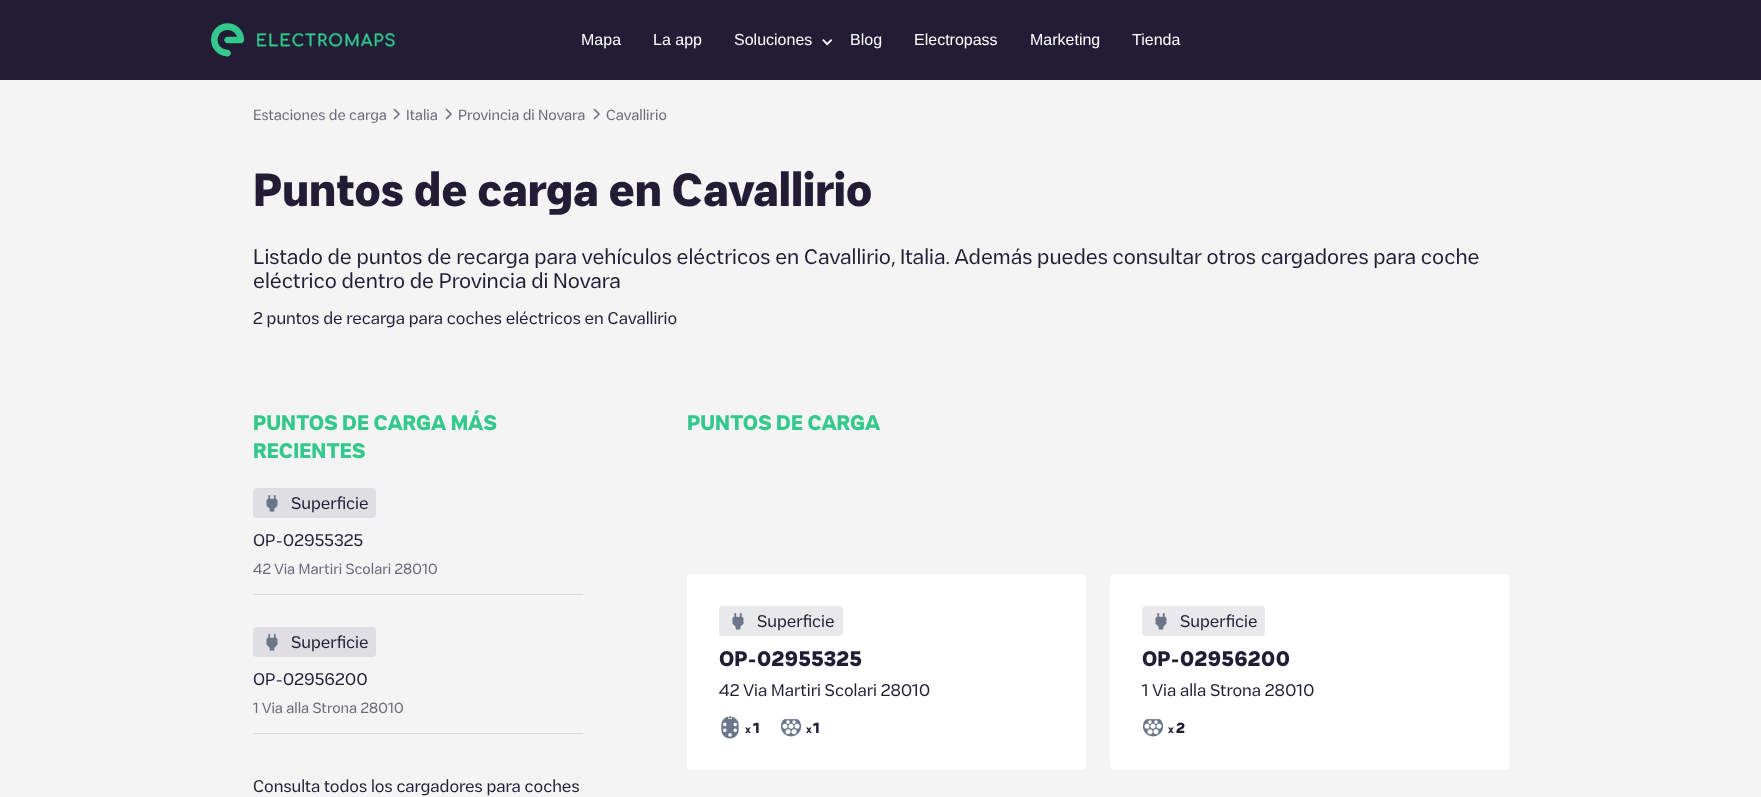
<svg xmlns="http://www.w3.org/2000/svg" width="1761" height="797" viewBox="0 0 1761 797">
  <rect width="100%" height="100%" fill="rgb(244,244,245)"/>
  <rect x="0" y="0" width="1761" height="80" fill="rgb(34,28,53)"/>
  <image x="211" y="23" width="184" height="34" href="pic1.png"/>
  <g font-family="Liberation Sans" font-size="16" fill="rgb(255,255,255)">
    <text x="581" y="45">Mapa</text>
    <text x="653" y="45">La app</text>
    <text x="734" y="45">Soluciones</text>
  </g>
  <image x="822" y="39" width="11" height="7" href="pic2.png"/>
  <g font-family="Liberation Sans" font-size="16" fill="rgb(255,255,255)">
    <text x="850" y="45">Blog</text>
    <text x="914" y="45">Electropass</text>
    <text x="1030" y="45">Marketing</text>
    <text x="1132" y="45">Tienda</text>
  </g>
  <text x="253" y="120" font-family="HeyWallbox" font-size="14" fill="rgb(108,104,120)">Estaciones de carga</text>
  <path d="M394 109L399 114L394 119" fill="none" stroke="rgb(108,104,120)" stroke-width="1.5"/>
  <text x="406" y="120" font-family="HeyWallbox" font-size="14" fill="rgb(108,104,120)">Italia</text>
  <path d="M446 109L451 114L446 119" fill="none" stroke="rgb(108,104,120)" stroke-width="1.5"/>
  <text x="458" y="120" font-family="HeyWallbox" font-size="14" fill="rgb(108,104,120)">Provincia di Novara</text>
  <path d="M594 109L599 114L594 119" fill="none" stroke="rgb(108,104,120)" stroke-width="1.5"/>
  <text x="606" y="120" font-family="HeyWallbox" font-size="14" fill="rgb(108,104,120)">Cavallirio</text>
  <text x="253" y="206" font-family="HeyWallbox" font-size="44" font-weight="bold" fill="rgb(34,28,53)">Puntos de carga en Cavallirio</text>
  <g font-family="HeyWallbox" font-size="20" fill="rgb(34,28,53)">
    <text>
      <tspan x="253" y="264">Listado de puntos de recarga para vehículos eléctricos en Cavallirio, Italia. Además puedes consultar otros cargadores para coche</tspan>
      <tspan x="253" y="288">eléctrico dentro de Provincia di Novara</tspan>
    </text>
  </g>
  <text x="253" y="324" font-family="HeyWallbox" font-size="16" fill="rgb(34,28,53)">2 puntos de recarga para coches eléctricos en Cavallirio</text>
  <g font-family="HeyWallbox" font-size="20" font-weight="bold" fill="rgb(51,200,140)">
    <text>
      <tspan x="253" y="430">PUNTOS DE CARGA MÁS</tspan>
      <tspan x="253" y="458">RECIENTES</tspan>
    </text>
  </g>
  <rect x="253" y="488" width="123" height="30" rx="4" fill="rgb(223,222,226)"/>
  <image x="266" y="495" width="12" height="17" href="pic3.png"/>
  <text x="291" y="509" font-family="HeyWallbox" font-size="16" fill="rgb(34,28,53)">Superficie</text>
  <rect x="253" y="594" width="330" height="1" fill="rgb(220,220,221)"/>
  <text x="253" y="546" font-family="HeyWallbox" font-size="16" fill="rgb(34,28,53)">OP-02955325</text>
  <text x="253" y="574" font-family="HeyWallbox" font-size="14" fill="rgb(108,104,120)">42 Via Martiri Scolari 28010</text>
  <rect x="253" y="627" width="123" height="30" rx="4" fill="rgb(223,222,226)"/>
  <image x="266" y="634" width="12" height="17" href="pic3.png"/>
  <text x="291" y="648" font-family="HeyWallbox" font-size="16" fill="rgb(34,28,53)">Superficie</text>
  <rect x="253" y="733" width="330" height="1" fill="rgb(220,220,221)"/>
  <text x="253" y="685" font-family="HeyWallbox" font-size="16" fill="rgb(34,28,53)">OP-02956200</text>
  <text x="253" y="713" font-family="HeyWallbox" font-size="14" fill="rgb(108,104,120)">1 Via alla Strona 28010</text>
  <text x="253" y="792" font-family="HeyWallbox" font-size="16" fill="rgb(34,28,53)">Consulta todos los cargadores para coches</text>
  <text x="687" y="430" font-family="HeyWallbox" font-size="20" font-weight="bold" fill="rgb(51,200,140)">PUNTOS DE CARGA</text>
  <rect x="687" y="574" width="399" height="196" rx="4" fill="rgb(255,255,255)"/>
  <rect x="719" y="606" width="124" height="30" rx="4" fill="rgb(233,232,235)"/>
  <image x="732" y="613" width="12" height="17" href="pic4.png"/>
  <text x="757" y="627" font-family="HeyWallbox" font-size="16" fill="rgb(34,28,53)">Superficie</text>
  <text x="719" y="666" font-family="HeyWallbox" font-size="20" font-weight="bold" fill="rgb(34,28,53)">OP-02955325</text>
  <text x="719" y="696" font-family="HeyWallbox" font-size="16" fill="rgb(34,28,53)">42 Via Martiri Scolari 28010</text>
  <image x="721" y="716" width="18" height="23" href="pic5.png"/>
  <text x="745" y="733" font-family="HeyWallbox" font-size="10" font-weight="bold" fill="rgb(34,28,53)">x</text>
  <text x="753" y="733" font-family="HeyWallbox" font-size="14" font-weight="bold" fill="rgb(34,28,53)">1</text>
  <image x="781" y="719" width="21" height="18" href="pic6.png"/>
  <text x="806" y="733" font-family="HeyWallbox" font-size="10" font-weight="bold" fill="rgb(34,28,53)">x</text>
  <text x="813" y="733" font-family="HeyWallbox" font-size="14" font-weight="bold" fill="rgb(34,28,53)">1</text>
  <rect x="1110" y="574" width="399" height="196" rx="4" fill="rgb(255,255,255)"/>
  <rect x="1142" y="606" width="123" height="30" rx="4" fill="rgb(233,232,235)"/>
  <image x="1155" y="613" width="12" height="17" href="pic4.png"/>
  <text x="1180" y="627" font-family="HeyWallbox" font-size="16" fill="rgb(34,28,53)">Superficie</text>
  <text x="1142" y="666" font-family="HeyWallbox" font-size="20" font-weight="bold" fill="rgb(34,28,53)">OP-02956200</text>
  <text x="1142" y="696" font-family="HeyWallbox" font-size="16" fill="rgb(34,28,53)">1 Via alla Strona 28010</text>
  <image x="1143" y="719" width="21" height="18" href="pic6.png"/>
  <text x="1168" y="733" font-family="HeyWallbox" font-size="10" font-weight="bold" fill="rgb(34,28,53)">x</text>
  <text x="1176" y="733" font-family="HeyWallbox" font-size="14" font-weight="bold" fill="rgb(34,28,53)">2</text>
</svg>
